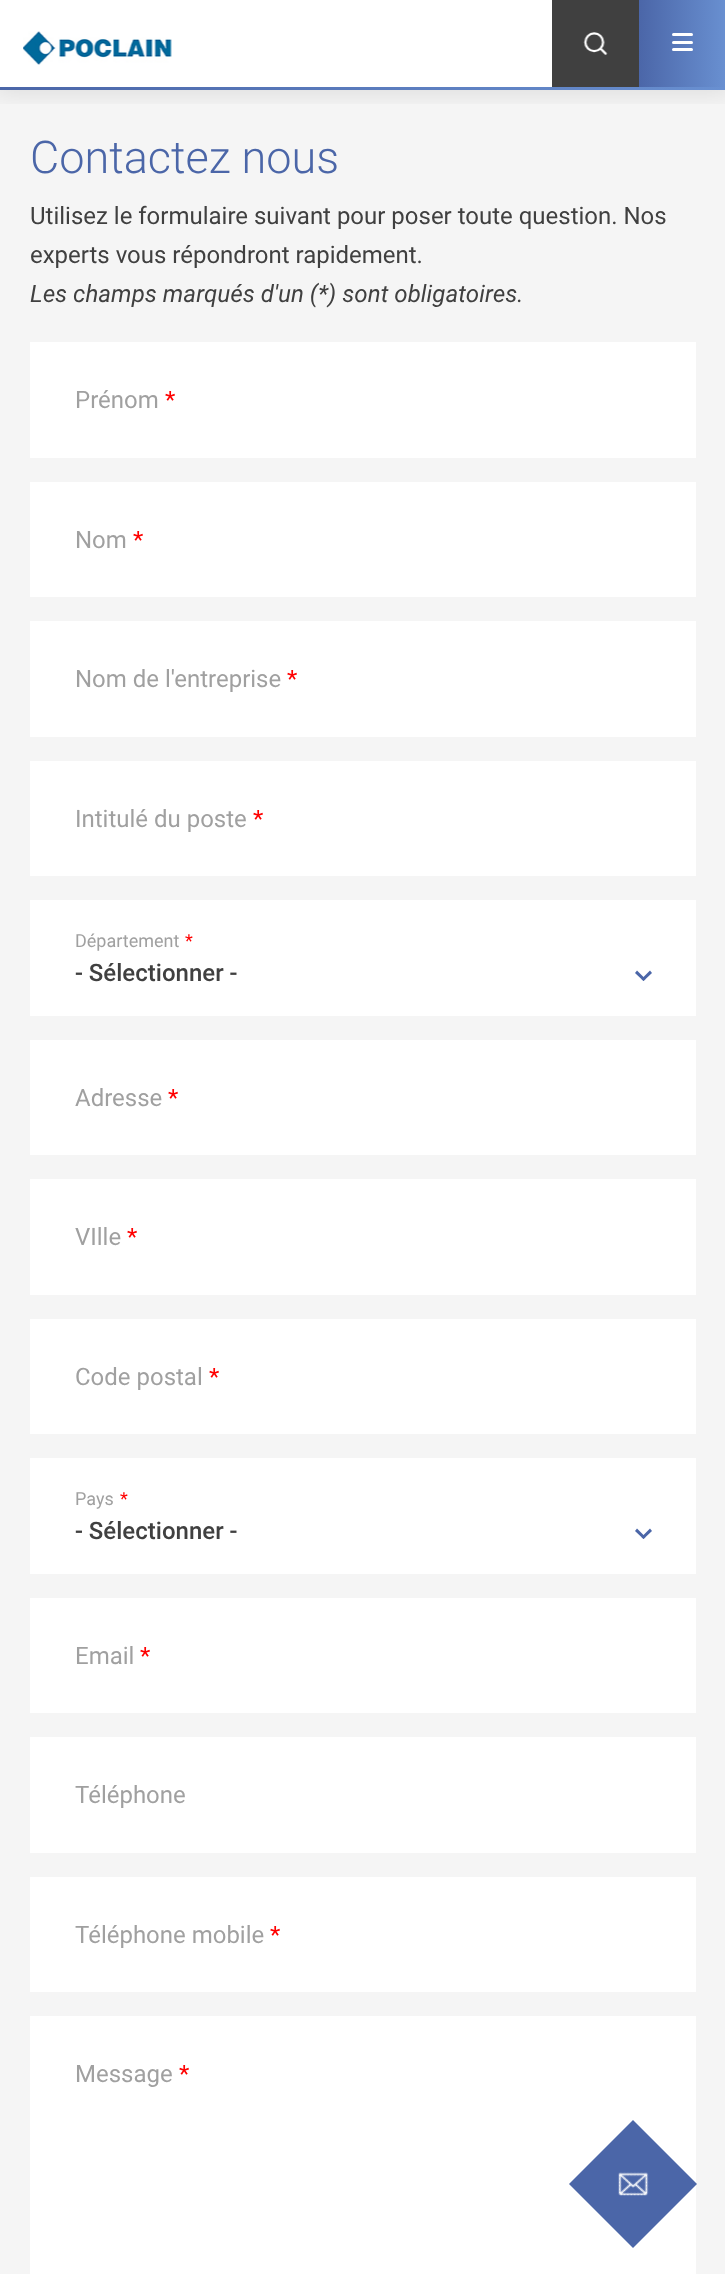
<svg xmlns="http://www.w3.org/2000/svg" width="725" height="2274" viewBox="0 0 725 2274">
  <defs>
    <clipPath id="clip1"><rect x="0" y="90" width="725" height="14"/></clipPath>
    <linearGradient id="g1" gradientUnits="userSpaceOnUse" x1="639" y1="43" x2="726" y2="44"><stop offset="0" stop-color="rgb(75,102,168)"/><stop offset="1" stop-color="rgb(105,144,209)"/></linearGradient>
    <linearGradient id="g2" gradientUnits="userSpaceOnUse" x1="0" y1="85" x2="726" y2="92"><stop offset="0" stop-color="rgb(75,102,168)"/><stop offset="1" stop-color="rgb(105,144,209)"/></linearGradient>
  </defs>
  <rect width="100%" height="100%" fill="rgb(255,255,255)"/>
  <rect x="0" y="90" width="725" height="2184" fill="rgb(245,245,245)"/>
  <g clip-path="url(#clip1)">
    <rect x="-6" y="-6" width="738" height="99" fill="rgba(0,0,0,0.1)" filter="blur(13.5px)"/>
  </g>
  <image x="23" y="31" width="149" height="34" href="pic1.png"/>
  <rect x="552" y="0" width="87" height="87" fill="rgb(64,64,64)"/>
  <image x="583" y="32" width="25" height="23" href="pic2.png"/>
  <rect x="639" y="0" width="86" height="87" fill="url(#g1)"/>
  <rect x="672" y="41" width="21" height="3" rx="1.5" fill="rgb(255,255,255)"/>
  <rect x="672" y="33" width="21" height="3" rx="1.5" fill="rgb(255,255,255)"/>
  <rect x="672" y="48" width="21" height="3" rx="1.5" fill="rgb(255,255,255)"/>
  <rect x="0" y="87" width="725" height="3" fill="url(#g2)"/>
  <text x="30" y="173" font-family="Roboto" font-size="45" font-weight="300" fill="rgb(75,102,168)">Contactez nous</text>
  <g font-family="Roboto" font-size="24" fill="rgb(64,64,64)">
    <text>
      <tspan x="30" y="224">Utilisez le formulaire suivant pour poser toute question. Nos</tspan>
      <tspan x="30" y="263">experts vous répondront rapidement.</tspan>
    </text>
  </g>
  <text x="30" y="302" font-family="Roboto" font-size="24" font-style="italic" fill="rgb(64,64,64)">Les champs marqués d'un (*) sont obligatoires.</text>
  <rect x="30" y="342" width="666" height="116" fill="rgb(255,255,255)"/>
  <text x="75" y="408" font-family="Roboto" font-size="24" fill="rgb(160,160,160)">Prénom</text>
  <text x="165" y="408" font-family="Roboto" font-size="24" fill="rgb(255,0,0)">*</text>
  <rect x="30" y="482" width="666" height="115" fill="rgb(255,255,255)"/>
  <text x="75" y="548" font-family="Roboto" font-size="24" fill="rgb(160,160,160)">Nom</text>
  <text x="133" y="548" font-family="Roboto" font-size="24" fill="rgb(255,0,0)">*</text>
  <rect x="30" y="621" width="666" height="116" fill="rgb(255,255,255)"/>
  <text x="75" y="687" font-family="Roboto" font-size="24" fill="rgb(160,160,160)">Nom de l'entreprise</text>
  <text x="287" y="687" font-family="Roboto" font-size="24" fill="rgb(255,0,0)">*</text>
  <rect x="30" y="761" width="666" height="115" fill="rgb(255,255,255)"/>
  <text x="75" y="827" font-family="Roboto" font-size="24" fill="rgb(160,160,160)">Intitulé du poste</text>
  <text x="253" y="827" font-family="Roboto" font-size="24" fill="rgb(255,0,0)">*</text>
  <rect x="30" y="900" width="666" height="116" fill="rgb(255,255,255)"/>
  <text x="75" y="947" font-family="Roboto" font-size="18" fill="rgb(160,160,160)">Département</text>
  <text x="185" y="947" font-family="Roboto" font-size="18" fill="rgb(255,0,0)">*</text>
  <text x="75" y="981" font-family="Roboto" font-size="24" font-weight="500" fill="rgb(64,64,64)">- Sélectionner -</text>
  <path d="M650 970.5L652 973L643.5 981L641.5 979Z" fill="rgb(75,102,168)"/>
  <path d="M637 970.5L645.5 979L643.5 981L635 973Z" fill="rgb(75,102,168)"/>
  <rect x="30" y="1040" width="666" height="115" fill="rgb(255,255,255)"/>
  <text x="75" y="1106" font-family="Roboto" font-size="24" fill="rgb(160,160,160)">Adresse</text>
  <text x="168" y="1106" font-family="Roboto" font-size="24" fill="rgb(255,0,0)">*</text>
  <rect x="30" y="1179" width="666" height="116" fill="rgb(255,255,255)"/>
  <text x="75" y="1245" font-family="Roboto" font-size="24" fill="rgb(160,160,160)">VIlle</text>
  <text x="127" y="1245" font-family="Roboto" font-size="24" fill="rgb(255,0,0)">*</text>
  <rect x="30" y="1319" width="666" height="115" fill="rgb(255,255,255)"/>
  <text x="75" y="1385" font-family="Roboto" font-size="24" fill="rgb(160,160,160)">Code postal</text>
  <text x="209" y="1385" font-family="Roboto" font-size="24" fill="rgb(255,0,0)">*</text>
  <rect x="30" y="1458" width="666" height="116" fill="rgb(255,255,255)"/>
  <text x="75" y="1505" font-family="Roboto" font-size="18" fill="rgb(160,160,160)">Pays</text>
  <text x="120" y="1505" font-family="Roboto" font-size="18" fill="rgb(255,0,0)">*</text>
  <text x="75" y="1539" font-family="Roboto" font-size="24" font-weight="500" fill="rgb(64,64,64)">- Sélectionner -</text>
  <path d="M650 1528.5L652 1531L643.5 1539L641.5 1537Z" fill="rgb(75,102,168)"/>
  <path d="M637 1528.5L645.5 1537L643.5 1539L635 1531Z" fill="rgb(75,102,168)"/>
  <rect x="30" y="1598" width="666" height="115" fill="rgb(255,255,255)"/>
  <text x="75" y="1664" font-family="Roboto" font-size="24" fill="rgb(160,160,160)">Email</text>
  <text x="140" y="1664" font-family="Roboto" font-size="24" fill="rgb(255,0,0)">*</text>
  <rect x="30" y="1737" width="666" height="116" fill="rgb(255,255,255)"/>
  <text x="75" y="1803" font-family="Roboto" font-size="24" fill="rgb(160,160,160)">Téléphone</text>
  <rect x="30" y="1877" width="666" height="115" fill="rgb(255,255,255)"/>
  <text x="75" y="1943" font-family="Roboto" font-size="24" fill="rgb(160,160,160)">Téléphone mobile</text>
  <text x="270" y="1943" font-family="Roboto" font-size="24" fill="rgb(255,0,0)">*</text>
  <rect x="30" y="2016" width="666" height="258" fill="rgb(255,255,255)"/>
  <text x="75" y="2082" font-family="Roboto" font-size="24" fill="rgb(160,160,160)">Message</text>
  <text x="179" y="2082" font-family="Roboto" font-size="24" fill="rgb(255,0,0)">*</text>
  <path d="M569 2184L633 2120L697 2184L633 2248Z" fill="rgb(75,102,168)"/>
  <image x="618" y="2172" width="31" height="24" href="pic3.png"/>
</svg>
